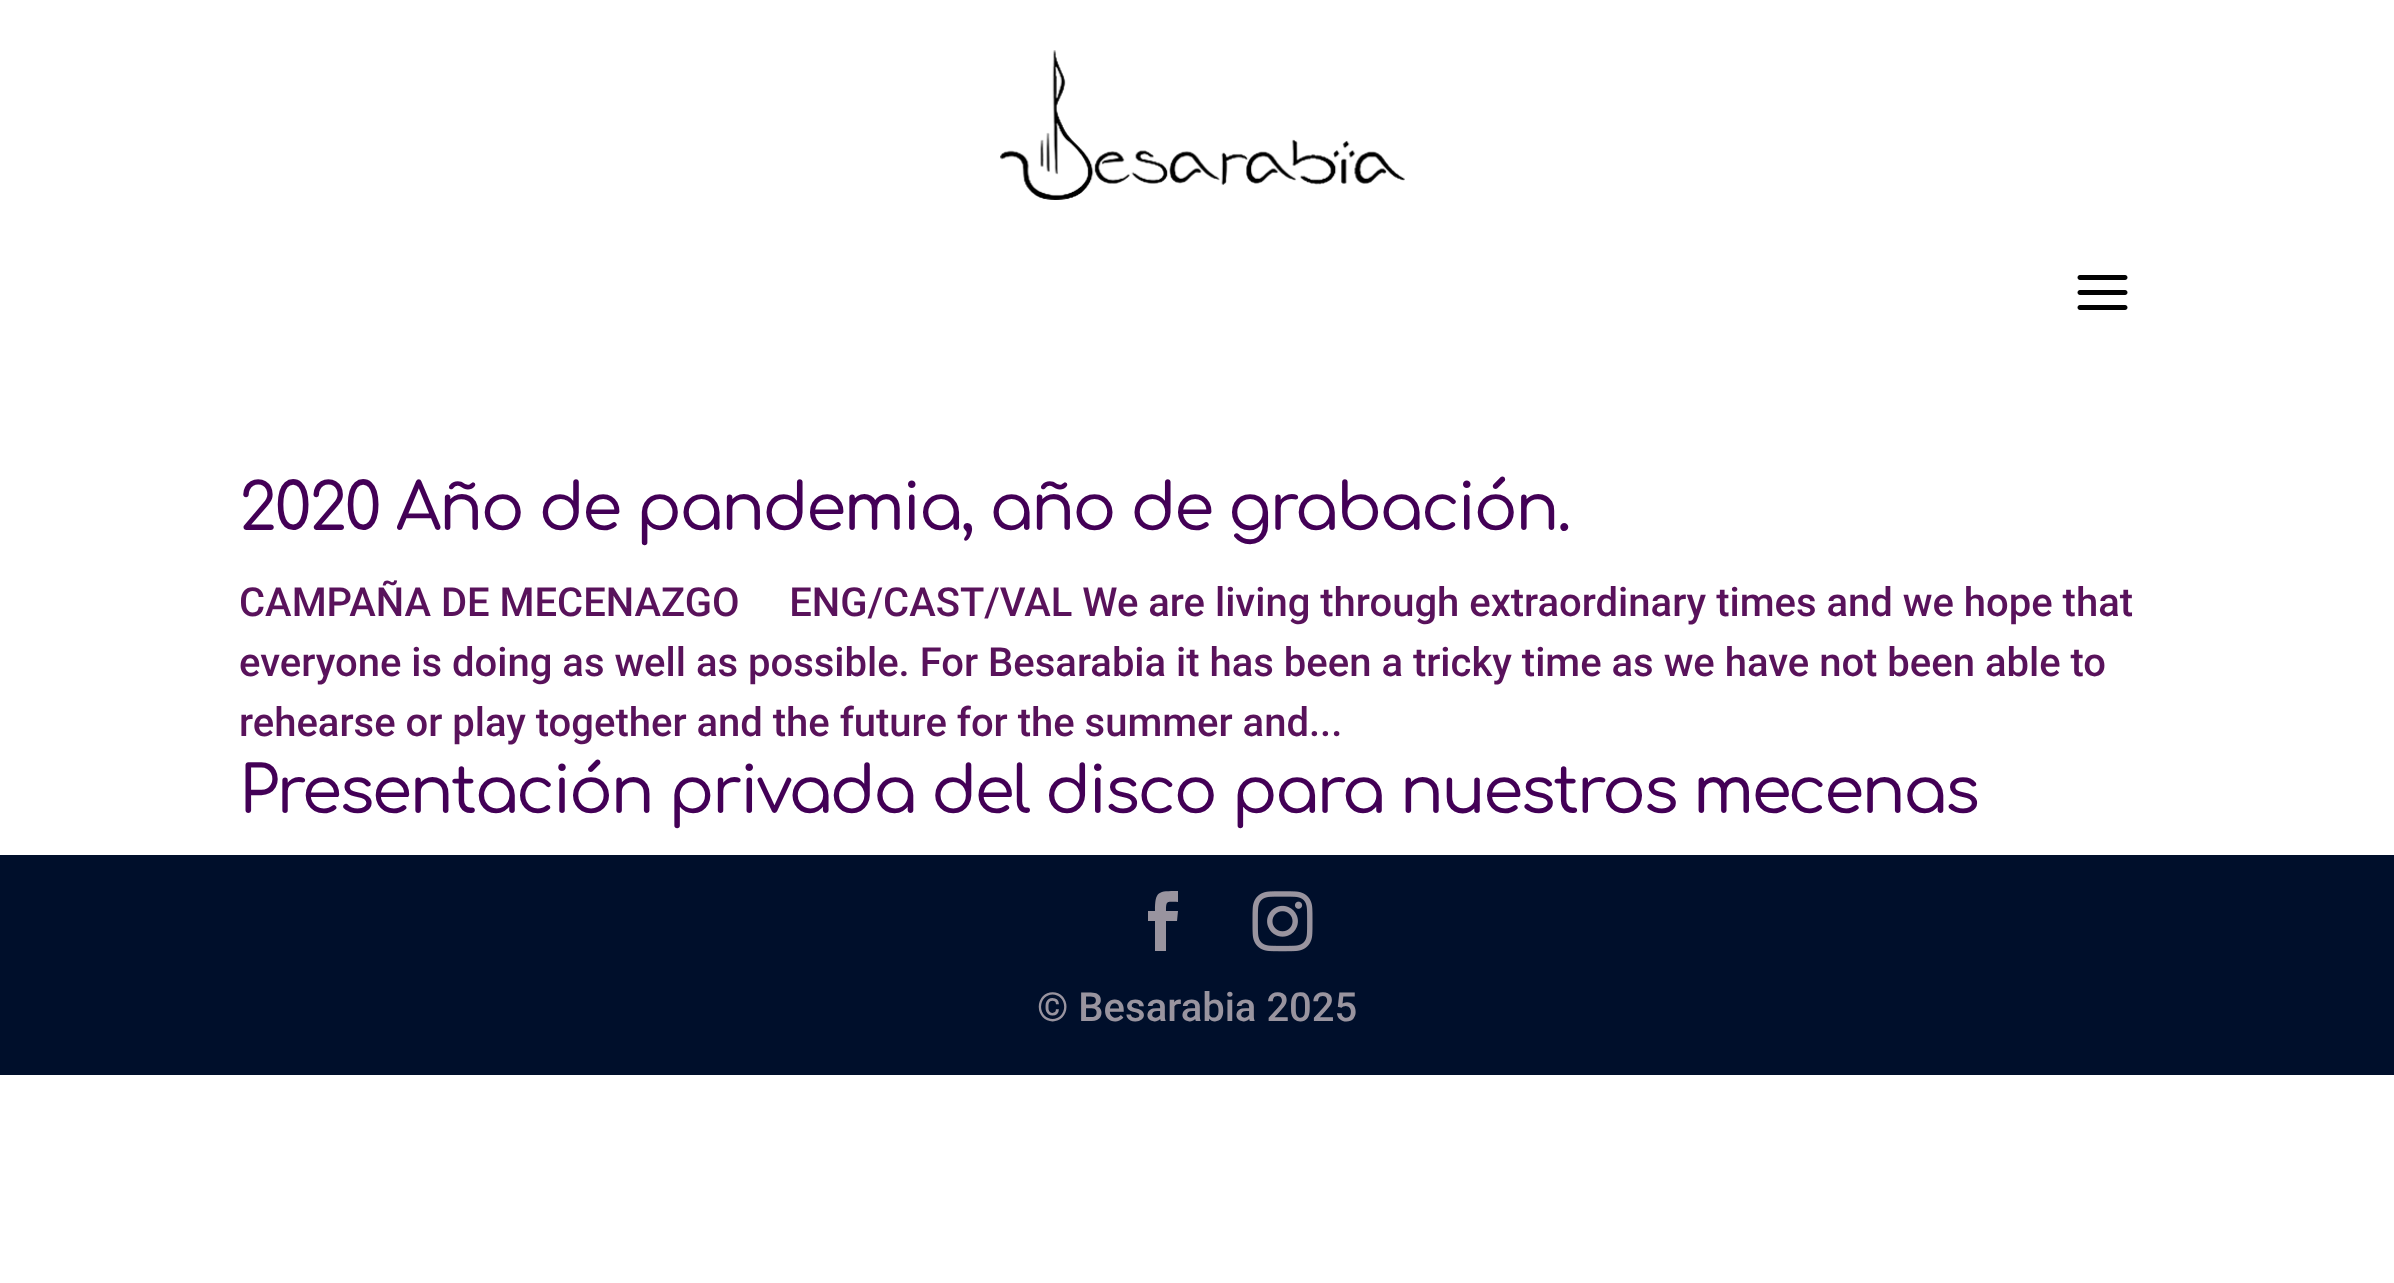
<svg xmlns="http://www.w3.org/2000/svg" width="2394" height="1283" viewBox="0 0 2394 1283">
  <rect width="100%" height="100%" fill="rgb(255,255,255)"/>
  <image x="1000" y="50" width="405" height="150" href="pic1.png"/>
  <image x="2077" y="275" width="51" height="35" href="pic2.png"/>
  <text x="239" y="530" font-family="Comfortaa" font-size="65" font-weight="500" letter-spacing="-2.5" fill="rgb(67,0,86)">2020 Año de pandemia, año de grabación.</text>
  <g font-family="Roboto" font-size="40" font-weight="500" fill="rgb(89,18,91)">
    <text xml:space="preserve"><tspan x="239" y="616">CAMPAÑA DE MECENAZGO     ENG/CAST/VAL We are living through extraordinary times and we hope that</tspan><tspan x="239" y="676">everyone is doing as well as possible. For Besarabia it has been a tricky time as we have not been able to</tspan><tspan x="239" y="736">rehearse or play together and the future for the summer and...</tspan></text>
  </g>
  <text x="239" y="813" font-family="Comfortaa" font-size="65" font-weight="500" letter-spacing="-2.5" fill="rgb(67,0,86)">Presentación privada del disco para nuestros mecenas</text>
  <rect x="0" y="855" width="2394" height="220" fill="rgb(0,15,43)"/>
  <path d="M1155 951H1166V921H1177L1178 911H1166C1166 900 1167 902 1178 902V891C1158 891 1155 891 1155 911H1148V921H1155Z" fill="rgb(153,148,159)"/>
  <image x="1252" y="891" width="61" height="61" href="pic3.png"/>
  <text x="1037" y="1021" font-family="Roboto" font-size="40" font-weight="500" fill="rgb(153,148,159)">© Besarabia 2025</text>
</svg>
